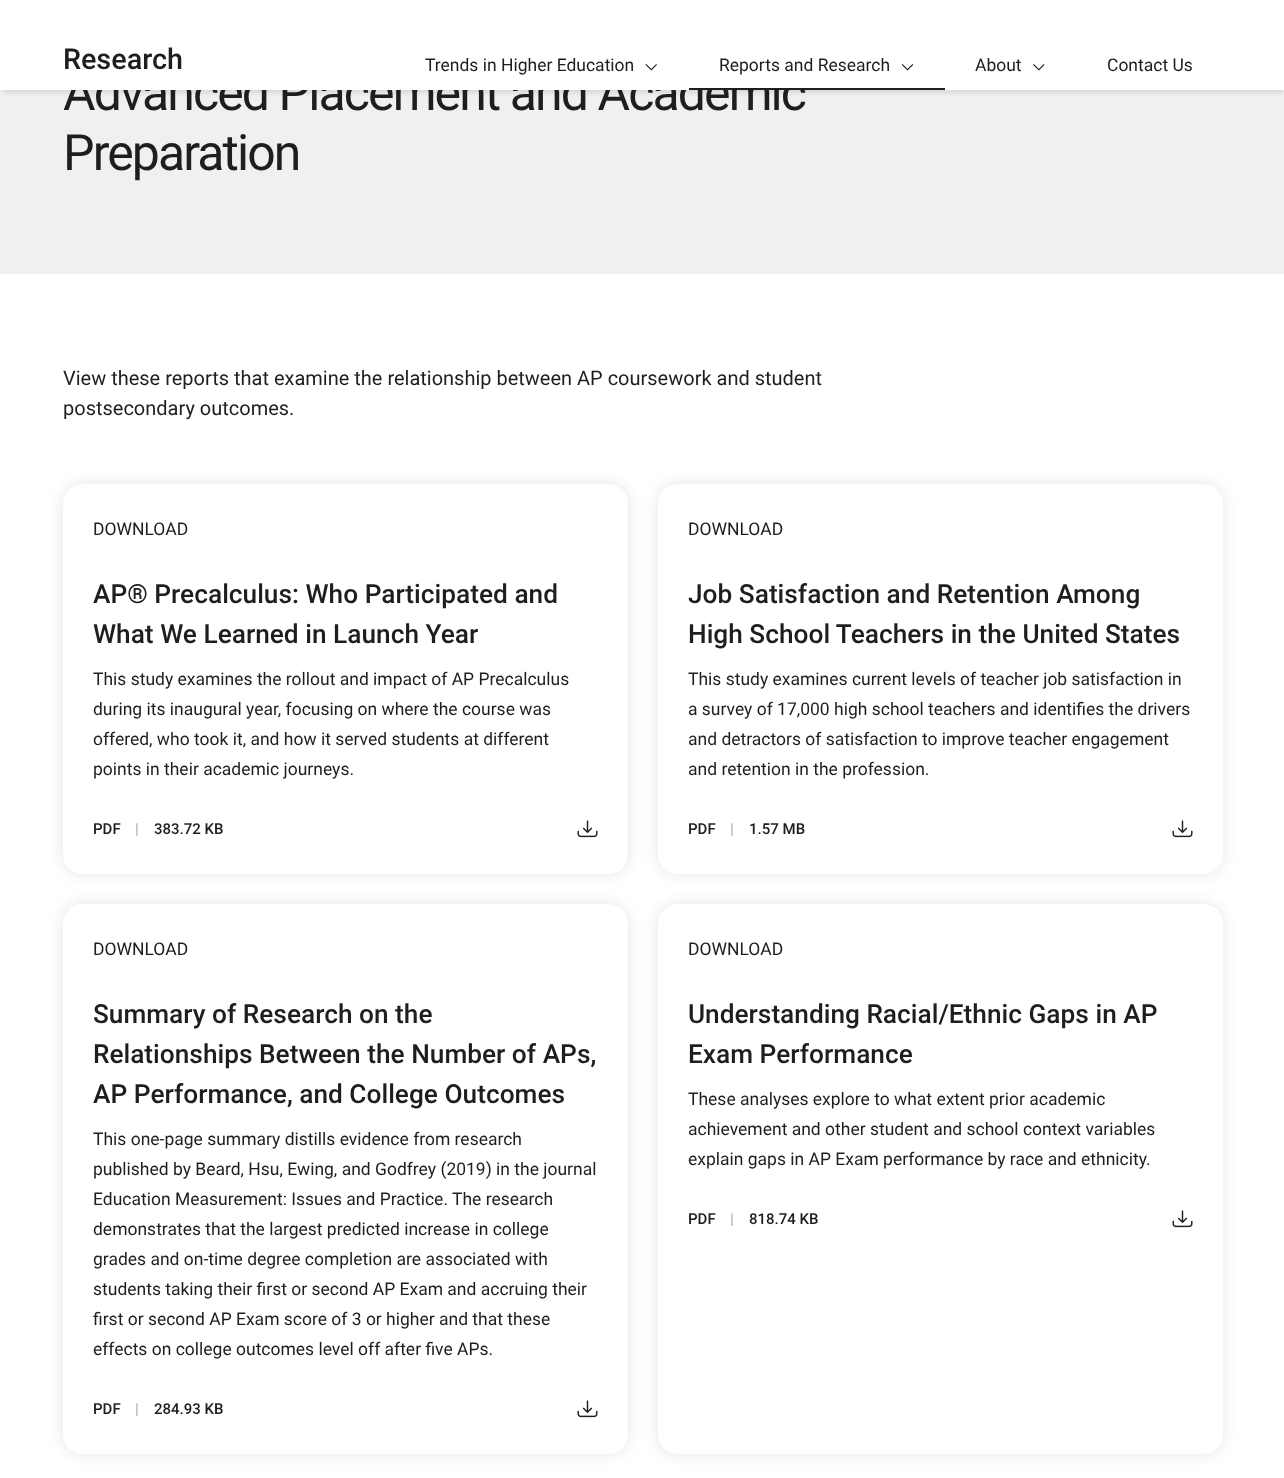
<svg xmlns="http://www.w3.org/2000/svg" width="1284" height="1478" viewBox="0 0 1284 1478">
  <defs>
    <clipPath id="clip1"><rect x="689" y="0" width="256" height="90"/></clipPath>
  </defs>
  <rect width="100%" height="100%" fill="rgb(255,255,255)"/>
  <rect x="0" y="90" width="1284" height="184" fill="rgb(240,240,240)"/>
  <rect x="3" y="8" width="1280" height="85" fill="rgba(0,0,0,0.1)" filter="blur(2.5px)"/>
  <text x="63" y="110" font-family="Roboto" font-size="50" letter-spacing="-1.9" fill="rgb(30,30,30)">Advanced Placement and Academic</text>
  <rect x="0" y="5" width="1284" height="85" fill="rgb(255,255,255)"/>
  <text x="63" y="69" font-family="Roboto" font-size="28.75" font-weight="500" fill="rgb(30,30,30)">Research</text>
  <text x="425" y="71" font-family="Roboto" font-size="17.5" fill="rgb(30,30,30)">Trends in Higher Education</text>
  <image x="645" y="64" width="12" height="7" href="pic1.png"/>
  <g clip-path="url(#clip1)">
    <path d="M565-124H1069V214H565ZM689-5H945C946-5 946-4 946-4V86C946 87 946 88 945 88H689C688 88 688 87 688 86V-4C688-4 688-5 689-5Z" fill="rgb(30,30,30)" fill-rule="evenodd"/>
  </g>
  <text x="719" y="71" font-family="Roboto" font-size="17.5" fill="rgb(30,30,30)">Reports and Research</text>
  <image x="901" y="64" width="13" height="7" href="pic2.png"/>
  <text x="975" y="71" font-family="Roboto" font-size="17.5" fill="rgb(30,30,30)">About</text>
  <image x="1033" y="64" width="12" height="7" href="pic3.png"/>
  <text x="1107" y="71" font-family="Roboto" font-size="17.5" fill="rgb(30,30,30)">Contact Us</text>
  <text x="63" y="170" font-family="Roboto" font-size="50" letter-spacing="-1.9" fill="rgb(30,30,30)">Preparation</text>
  <g font-family="Roboto" font-size="20" fill="rgb(30,30,30)">
    <text>
      <tspan x="63" y="385">View these reports that examine the relationship between AP coursework and student</tspan>
      <tspan x="63" y="415">postsecondary outcomes.</tspan>
    </text>
  </g>
  <rect x="63" y="484" width="565" height="390" rx="20" fill="rgba(0,0,0,0.1)" filter="blur(7.5px)"/>
  <rect x="63" y="484" width="565" height="390" rx="20" fill="rgb(255,255,255)"/>
  <text x="93" y="535" font-family="Roboto" font-size="17.5" fill="rgb(30,30,30)">DOWNLOAD</text>
  <g font-family="Roboto" font-size="26.25" font-weight="500" fill="rgb(30,30,30)">
    <text>
      <tspan x="93" y="603">AP® Precalculus: Who Participated and</tspan>
      <tspan x="93" y="643">What We Learned in Launch Year</tspan>
    </text>
  </g>
  <g font-family="Roboto" font-size="17.5" fill="rgb(30,30,30)">
    <text>
      <tspan x="93" y="685">This study examines the rollout and impact of AP Precalculus</tspan>
      <tspan x="93" y="715">during its inaugural year, focusing on where the course was</tspan>
      <tspan x="93" y="745">offered, who took it, and how it served students at different</tspan>
      <tspan x="93" y="775">points in their academic journeys.</tspan>
    </text>
  </g>
  <text x="93" y="834" font-family="Roboto" font-size="15" font-weight="500" fill="rgb(30,30,30)">PDF</text>
  <text x="135" y="834" font-family="Roboto" font-size="15" font-weight="500" fill="rgb(178,178,178)">|</text>
  <text x="154" y="834" font-family="Roboto" font-size="15" font-weight="500" fill="rgb(30,30,30)">383.72 KB</text>
  <image x="577" y="820" width="21" height="18" href="pic4.png"/>
  <rect x="658" y="484" width="565" height="390" rx="20" fill="rgba(0,0,0,0.1)" filter="blur(7.5px)"/>
  <rect x="658" y="484" width="565" height="390" rx="20" fill="rgb(255,255,255)"/>
  <text x="688" y="535" font-family="Roboto" font-size="17.5" fill="rgb(30,30,30)">DOWNLOAD</text>
  <g font-family="Roboto" font-size="26.25" font-weight="500" fill="rgb(30,30,30)">
    <text>
      <tspan x="688" y="603">Job Satisfaction and Retention Among</tspan>
      <tspan x="688" y="643">High School Teachers in the United States</tspan>
    </text>
  </g>
  <g font-family="Roboto" font-size="17.5" fill="rgb(30,30,30)">
    <text>
      <tspan x="688" y="685">This study examines current levels of teacher job satisfaction in</tspan>
      <tspan x="688" y="715">a survey of 17,000 high school teachers and identifies the drivers</tspan>
      <tspan x="688" y="745">and detractors of satisfaction to improve teacher engagement</tspan>
      <tspan x="688" y="775">and retention in the profession.</tspan>
    </text>
  </g>
  <text x="688" y="834" font-family="Roboto" font-size="15" font-weight="500" fill="rgb(30,30,30)">PDF</text>
  <text x="730" y="834" font-family="Roboto" font-size="15" font-weight="500" fill="rgb(178,178,178)">|</text>
  <text x="749" y="834" font-family="Roboto" font-size="15" font-weight="500" fill="rgb(30,30,30)">1.57 MB</text>
  <image x="1172" y="820" width="21" height="18" href="pic4.png"/>
  <rect x="63" y="904" width="565" height="550" rx="20" fill="rgba(0,0,0,0.1)" filter="blur(7.5px)"/>
  <rect x="63" y="904" width="565" height="550" rx="20" fill="rgb(255,255,255)"/>
  <text x="93" y="955" font-family="Roboto" font-size="17.5" fill="rgb(30,30,30)">DOWNLOAD</text>
  <g font-family="Roboto" font-size="26.25" font-weight="500" fill="rgb(30,30,30)">
    <text>
      <tspan x="93" y="1023">Summary of Research on the</tspan>
      <tspan x="93" y="1063">Relationships Between the Number of APs,</tspan>
      <tspan x="93" y="1103">AP Performance, and College Outcomes</tspan>
    </text>
  </g>
  <g font-family="Roboto" font-size="17.5" fill="rgb(30,30,30)">
    <text>
      <tspan x="93" y="1145">This one-page summary distills evidence from research</tspan>
      <tspan x="93" y="1175">published by Beard, Hsu, Ewing, and Godfrey (2019) in the journal</tspan>
      <tspan x="93" y="1205">Education Measurement: Issues and Practice. The research</tspan>
      <tspan x="93" y="1235">demonstrates that the largest predicted increase in college</tspan>
      <tspan x="93" y="1265">grades and on-time degree completion are associated with</tspan>
      <tspan x="93" y="1295">students taking their first or second AP Exam and accruing their</tspan>
      <tspan x="93" y="1325">first or second AP Exam score of 3 or higher and that these</tspan>
      <tspan x="93" y="1355">effects on college outcomes level off after five APs.</tspan>
    </text>
  </g>
  <text x="93" y="1414" font-family="Roboto" font-size="15" font-weight="500" fill="rgb(30,30,30)">PDF</text>
  <text x="135" y="1414" font-family="Roboto" font-size="15" font-weight="500" fill="rgb(178,178,178)">|</text>
  <text x="154" y="1414" font-family="Roboto" font-size="15" font-weight="500" fill="rgb(30,30,30)">284.93 KB</text>
  <image x="577" y="1400" width="21" height="18" href="pic4.png"/>
  <rect x="658" y="904" width="565" height="550" rx="20" fill="rgba(0,0,0,0.1)" filter="blur(7.5px)"/>
  <rect x="658" y="904" width="565" height="550" rx="20" fill="rgb(255,255,255)"/>
  <text x="688" y="955" font-family="Roboto" font-size="17.5" fill="rgb(30,30,30)">DOWNLOAD</text>
  <g font-family="Roboto" font-size="26.25" font-weight="500" fill="rgb(30,30,30)">
    <text>
      <tspan x="688" y="1023">Understanding Racial/Ethnic Gaps in AP</tspan>
      <tspan x="688" y="1063">Exam Performance</tspan>
    </text>
  </g>
  <g font-family="Roboto" font-size="17.5" fill="rgb(30,30,30)">
    <text>
      <tspan x="688" y="1105">These analyses explore to what extent prior academic</tspan>
      <tspan x="688" y="1135">achievement and other student and school context variables</tspan>
      <tspan x="688" y="1165">explain gaps in AP Exam performance by race and ethnicity.</tspan>
    </text>
  </g>
  <text x="688" y="1224" font-family="Roboto" font-size="15" font-weight="500" fill="rgb(30,30,30)">PDF</text>
  <text x="730" y="1224" font-family="Roboto" font-size="15" font-weight="500" fill="rgb(178,178,178)">|</text>
  <text x="749" y="1224" font-family="Roboto" font-size="15" font-weight="500" fill="rgb(30,30,30)">818.74 KB</text>
  <image x="1172" y="1210" width="21" height="18" href="pic4.png"/>
</svg>
